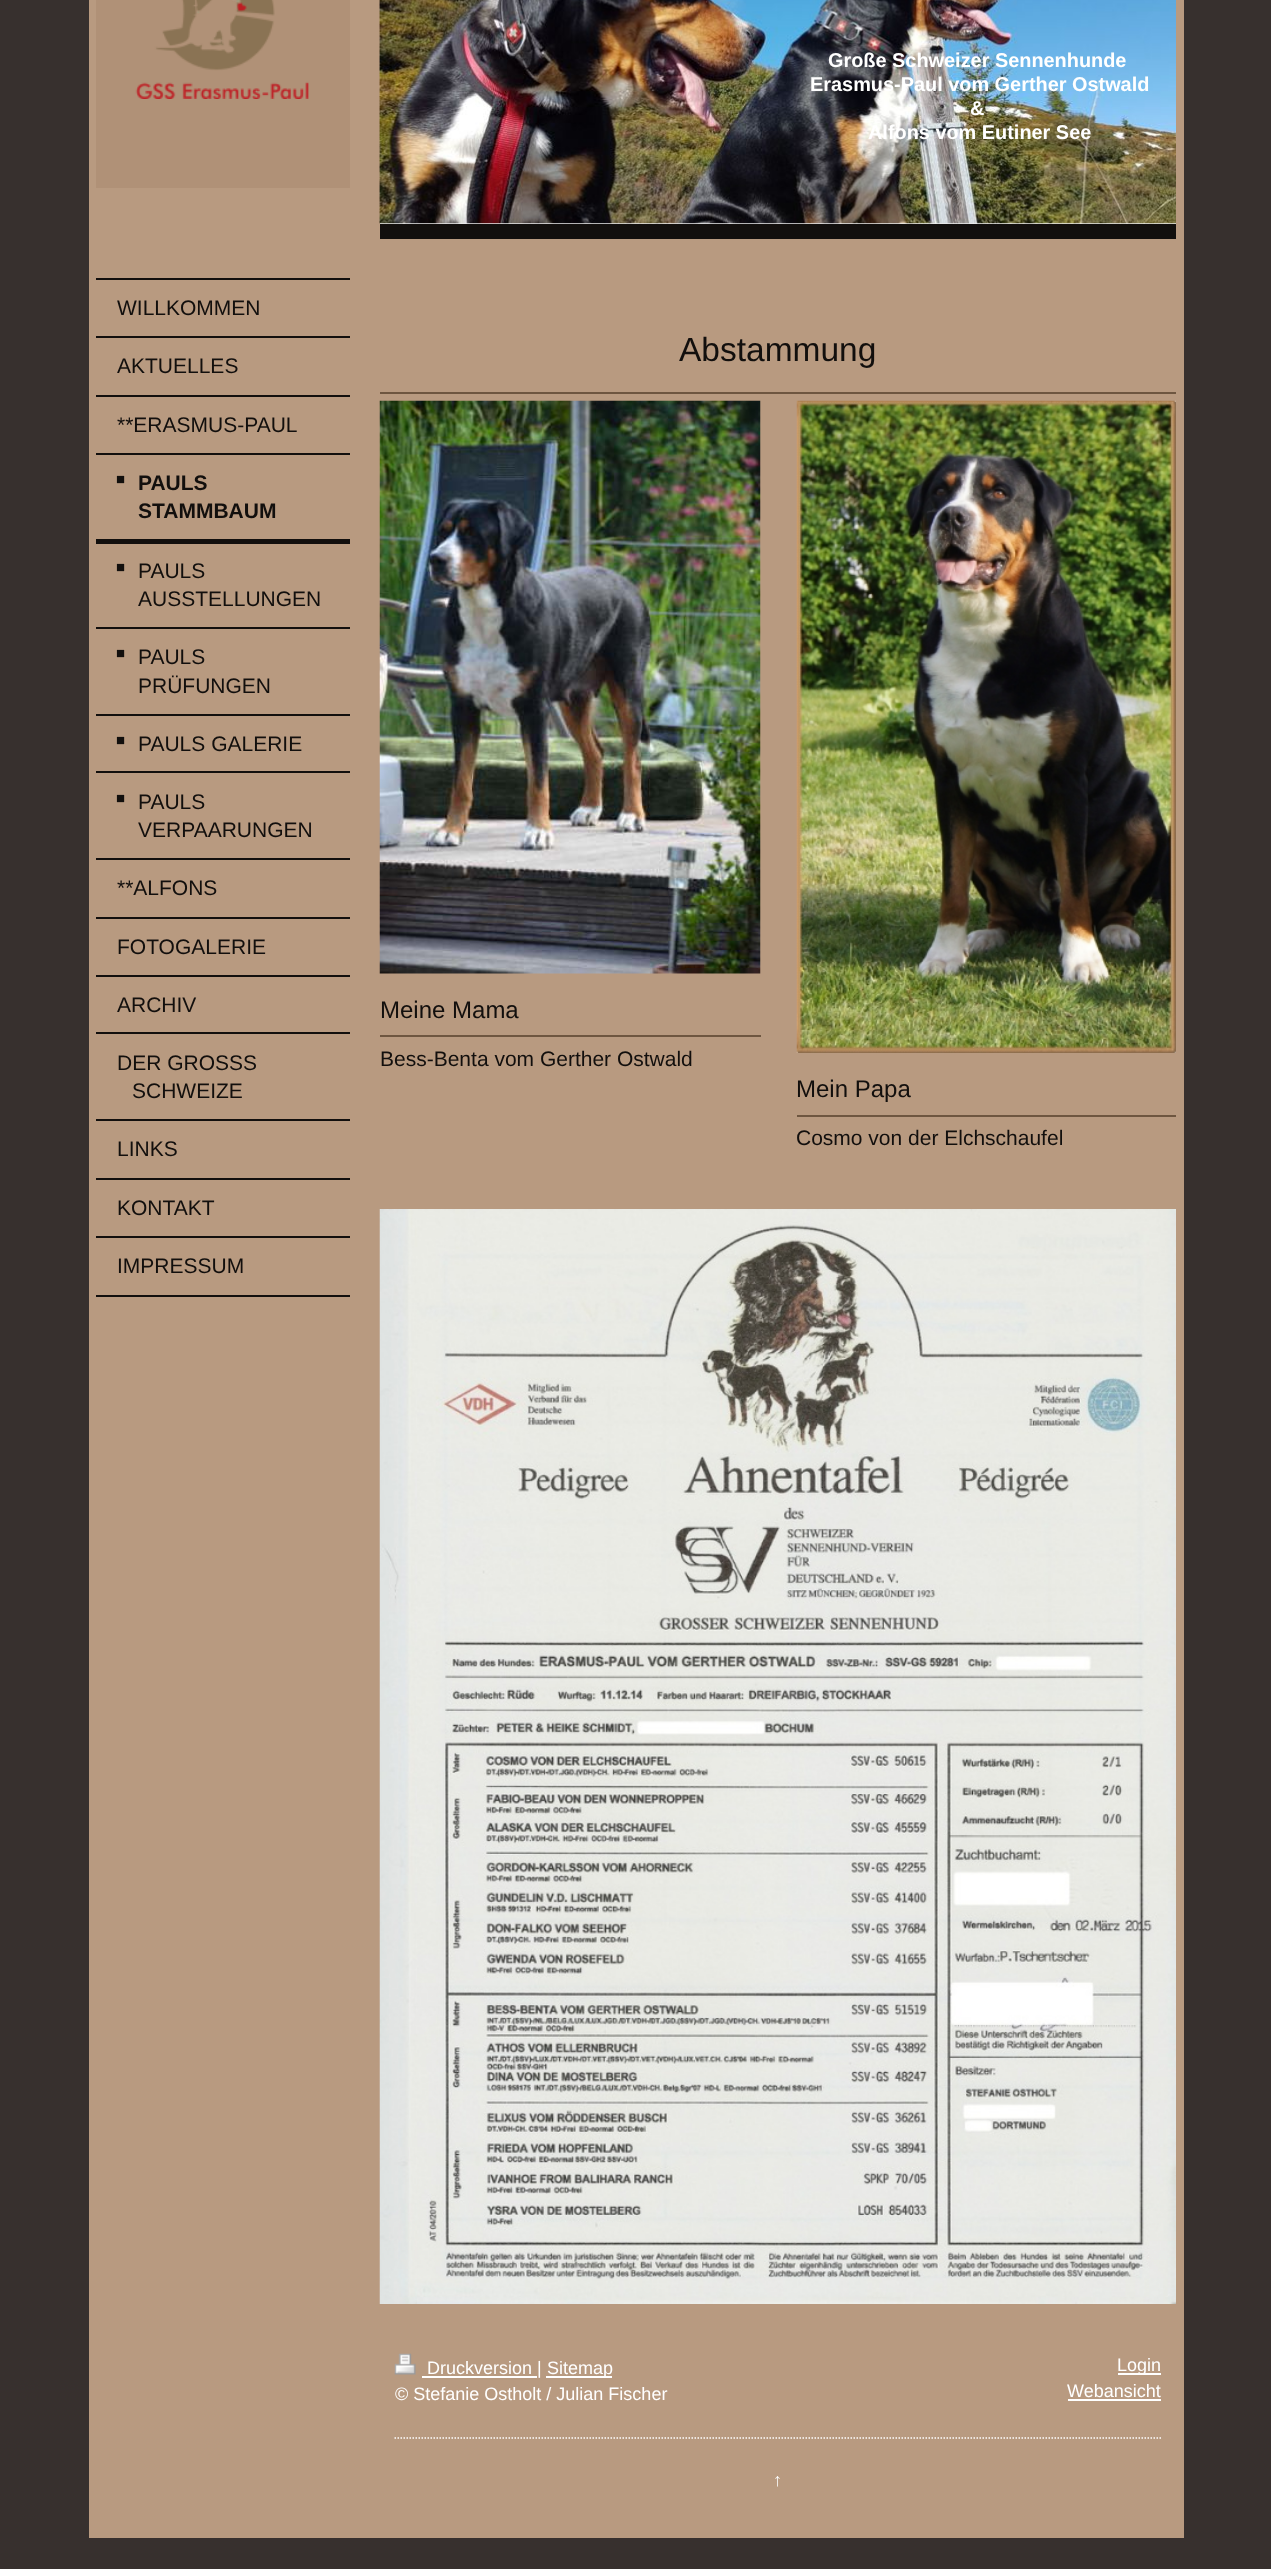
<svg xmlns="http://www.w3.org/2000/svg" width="1271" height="2569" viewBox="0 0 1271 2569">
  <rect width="100%" height="100%" fill="rgb(55,48,46)"/>
  <rect x="89" y="0" width="1095" height="2538" fill="rgb(184,154,128)"/>
  <rect x="96" y="0" width="254" height="188" fill="rgb(176,145,119)"/>
  <image x="135" y="0" width="174" height="99" href="pic1.png"/>
  <rect x="96" y="278" width="254" height="2" fill="rgb(18,15,13)"/>
  <rect x="96" y="336" width="254" height="2" fill="rgb(18,15,13)"/>
  <text x="117" y="315" font-family="Liberation Sans" font-size="21" fill="rgb(18,15,13)">WILLKOMMEN</text>
  <rect x="96" y="395" width="254" height="2" fill="rgb(18,15,13)"/>
  <text x="117" y="373" font-family="Liberation Sans" font-size="21" fill="rgb(18,15,13)">AKTUELLES</text>
  <rect x="96" y="453" width="254" height="2" fill="rgb(18,15,13)"/>
  <text x="117" y="432" font-family="Liberation Sans" font-size="21" fill="rgb(18,15,13)">**ERASMUS-PAUL</text>
  <rect x="96" y="858" width="254" height="2" fill="rgb(18,15,13)"/>
  <rect x="96" y="539" width="254" height="5" fill="rgb(18,15,13)"/>
  <text x="116" y="484" font-family="Liberation Sans" font-size="15" font-weight="bold" fill="rgb(18,15,13)">■</text>
  <g font-family="Liberation Sans" font-size="21" font-weight="bold" fill="rgb(18,15,13)">
    <text>
      <tspan x="138" y="490">PAULS</tspan>
      <tspan x="138" y="518">STAMMBAUM</tspan>
    </text>
  </g>
  <rect x="96" y="627" width="254" height="2" fill="rgb(18,15,13)"/>
  <text x="116" y="572" font-family="Liberation Sans" font-size="15" fill="rgb(18,15,13)">■</text>
  <g font-family="Liberation Sans" font-size="21" fill="rgb(18,15,13)">
    <text>
      <tspan x="138" y="578">PAULS</tspan>
      <tspan x="138" y="606">AUSSTELLUNGEN</tspan>
    </text>
  </g>
  <rect x="96" y="714" width="254" height="2" fill="rgb(18,15,13)"/>
  <text x="116" y="658" font-family="Liberation Sans" font-size="15" fill="rgb(18,15,13)">■</text>
  <g font-family="Liberation Sans" font-size="21" fill="rgb(18,15,13)">
    <text>
      <tspan x="138" y="664">PAULS</tspan>
      <tspan x="138" y="693">PRÜFUNGEN</tspan>
    </text>
  </g>
  <rect x="96" y="771" width="254" height="2" fill="rgb(18,15,13)"/>
  <text x="116" y="745" font-family="Liberation Sans" font-size="15" fill="rgb(18,15,13)">■</text>
  <text x="138" y="751" font-family="Liberation Sans" font-size="21" fill="rgb(18,15,13)">PAULS GALERIE</text>
  <text x="116" y="803" font-family="Liberation Sans" font-size="15" fill="rgb(18,15,13)">■</text>
  <g font-family="Liberation Sans" font-size="21" fill="rgb(18,15,13)">
    <text>
      <tspan x="138" y="809">PAULS</tspan>
      <tspan x="138" y="837">VERPAARUNGEN</tspan>
    </text>
  </g>
  <rect x="96" y="917" width="254" height="2" fill="rgb(18,15,13)"/>
  <text x="117" y="895" font-family="Liberation Sans" font-size="21" fill="rgb(18,15,13)">**ALFONS</text>
  <rect x="96" y="975" width="254" height="2" fill="rgb(18,15,13)"/>
  <text x="117" y="954" font-family="Liberation Sans" font-size="21" fill="rgb(18,15,13)">FOTOGALERIE</text>
  <rect x="96" y="1032" width="254" height="2" fill="rgb(18,15,13)"/>
  <text x="117" y="1012" font-family="Liberation Sans" font-size="21" fill="rgb(18,15,13)">ARCHIV</text>
  <rect x="96" y="1119" width="254" height="2" fill="rgb(18,15,13)"/>
  <g font-family="Liberation Sans" font-size="21" fill="rgb(18,15,13)">
    <text x="117" y="1070">DER GROSSS</text>
    <text x="132" y="1098">SCHWEIZE</text>
  </g>
  <rect x="96" y="1178" width="254" height="2" fill="rgb(18,15,13)"/>
  <text x="117" y="1156" font-family="Liberation Sans" font-size="21" fill="rgb(18,15,13)">LINKS</text>
  <rect x="96" y="1236" width="254" height="2" fill="rgb(18,15,13)"/>
  <text x="117" y="1215" font-family="Liberation Sans" font-size="21" fill="rgb(18,15,13)">KONTAKT</text>
  <rect x="96" y="1295" width="254" height="2" fill="rgb(18,15,13)"/>
  <text x="117" y="1273" font-family="Liberation Sans" font-size="21" fill="rgb(18,15,13)">IMPRESSUM</text>
  <rect x="380" y="224" width="796" height="15" fill="rgb(18,15,13)"/>
  <image x="379" y="0" width="1" height="224" href="pic2.png"/>
  <rect x="380" y="223" width="796" height="1" fill="rgb(238,238,238)"/>
  <image x="379" y="0" width="797" height="224" href="pic3.png"/>
  <g font-family="Liberation Sans" font-size="19.9" font-weight="bold" fill="rgb(255,255,255)">
    <text x="828" y="67">Große Schweizer Sennenhunde</text>
    <text x="810" y="91">Erasmus-Paul vom Gerther Ostwald</text>
    <text x="970" y="115">&amp;</text>
    <text x="868" y="139">Alfons vom Eutiner See</text>
  </g>
  <text x="679" y="361" font-family="Liberation Sans" font-size="33.5" fill="rgb(18,15,13)">Abstammung</text>
  <rect x="380" y="392" width="796" height="2" fill="rgb(110,86,64)"/>
  <image x="379" y="400" width="382" height="574" href="pic4.png"/>
  <text x="380" y="1018" font-family="Liberation Sans" font-size="24" fill="rgb(18,15,13)">Meine Mama</text>
  <rect x="380" y="1035" width="381" height="2" fill="rgb(110,86,64)"/>
  <text x="380" y="1066" font-family="Liberation Sans" font-size="21" fill="rgb(18,15,13)">Bess-Benta vom Gerther Ostwald</text>
  <image x="796" y="400" width="380" height="653" href="pic5.png"/>
  <text x="796" y="1097" font-family="Liberation Sans" font-size="24" fill="rgb(18,15,13)">Mein Papa</text>
  <rect x="797" y="1115" width="379" height="2" fill="rgb(110,86,64)"/>
  <text x="796" y="1145" font-family="Liberation Sans" font-size="21" fill="rgb(18,15,13)">Cosmo von der Elchschaufel</text>
  <image x="379" y="1209" width="797" height="1095" href="pic6.png"/>
  <image x="394" y="2353" width="22" height="22" href="pic7.png"/>
  <rect x="422" y="2376" width="115" height="2" fill="rgb(255,255,255)"/>
  <text x="427" y="2374" font-family="Liberation Sans" font-size="18" fill="rgb(255,255,255)">Druckversion |</text>
  <rect x="546" y="2376" width="66" height="2" fill="rgb(255,255,255)"/>
  <g font-family="Liberation Sans" font-size="18" fill="rgb(255,255,255)">
    <text x="547" y="2374">Sitemap</text>
    <text x="395" y="2400">© Stefanie Ostholt / Julian Fischer</text>
  </g>
  <rect x="1118" y="2373" width="43" height="2" fill="rgb(255,255,255)"/>
  <g font-family="Liberation Sans" font-size="18" fill="rgb(255,255,255)">
    <text x="1117" y="2371">Login</text>
    <text x="1067" y="2397">Webansicht</text>
  </g>
  <rect x="1068" y="2399" width="93" height="2" fill="rgb(255,255,255)"/>
  <path d="M394.5 2438H1161" fill="none" stroke="rgb(255,255,255)" stroke-width="1.5" stroke-dasharray="1.5 1.5"/>
  <text x="773" y="2486" font-family="Liberation Sans" font-size="18" fill="rgb(255,255,255)">↑</text>
</svg>
